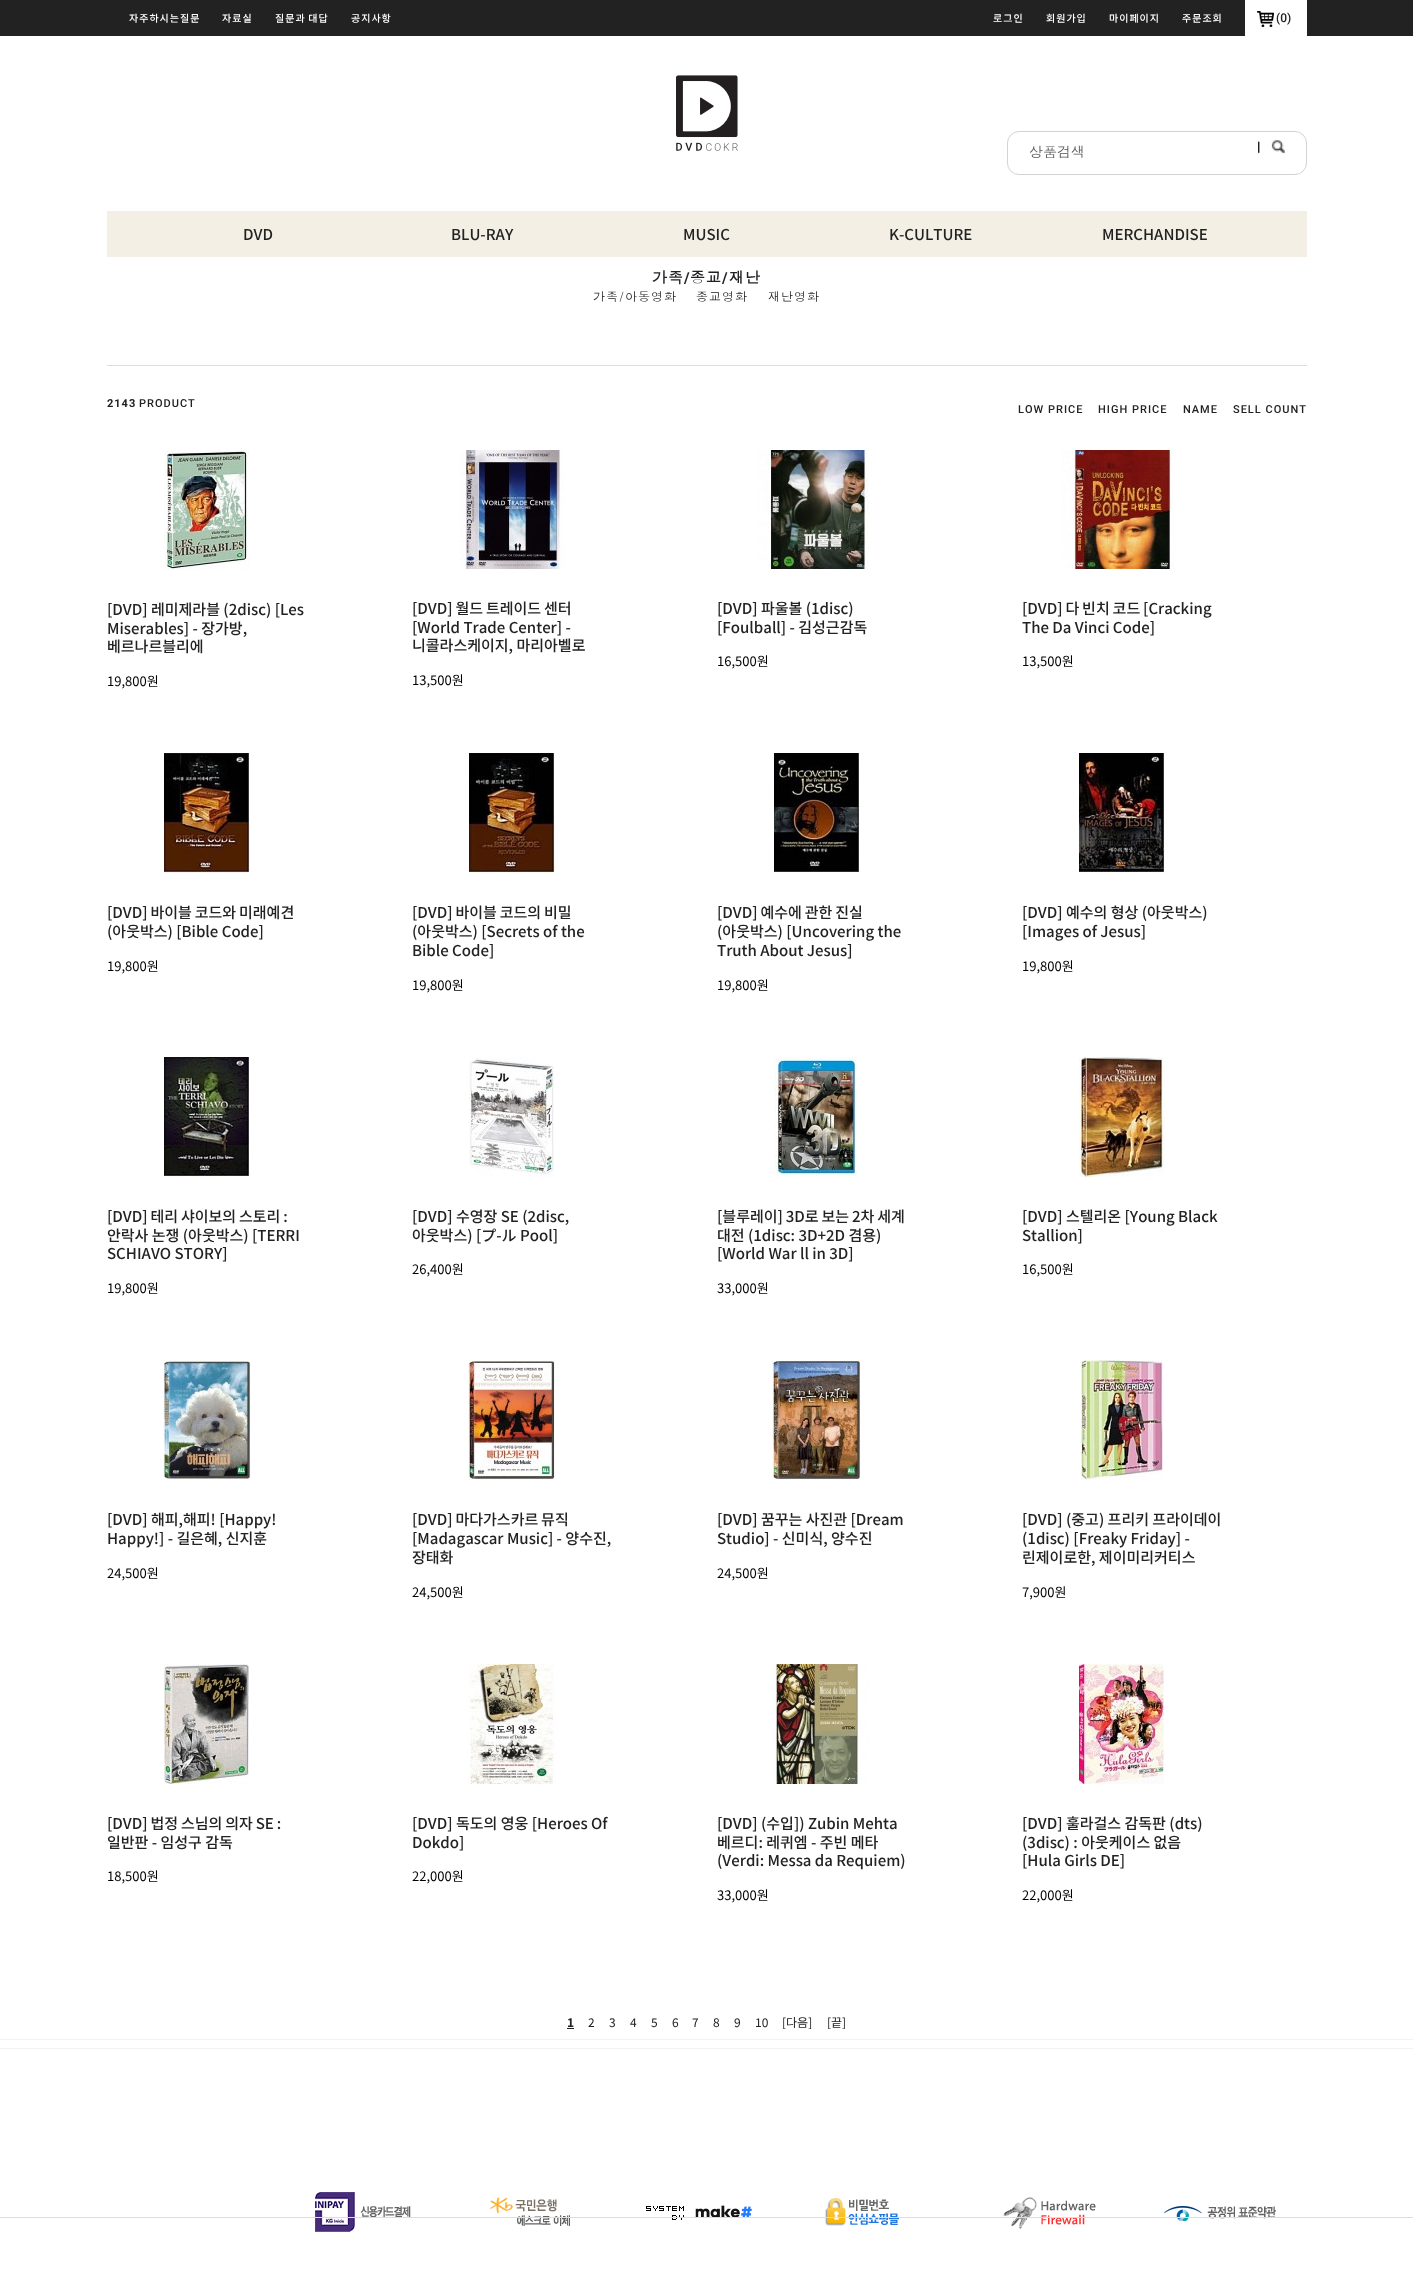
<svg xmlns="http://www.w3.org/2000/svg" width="1413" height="2276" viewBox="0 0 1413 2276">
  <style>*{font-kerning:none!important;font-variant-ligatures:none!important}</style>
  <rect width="100%" height="100%" fill="rgb(255,255,255)"/>
  <rect x="0" y="0" width="1413" height="36" fill="rgb(34,34,34)"/>
  <g font-family="Noto Sans KR" font-size="10" font-weight="500" letter-spacing="1" fill="rgb(255,255,255)">
    <text x="129" y="22">자주하시는질문</text>
    <text x="222" y="22">자료실</text>
    <text x="275" y="22" word-spacing="-0.5">질문과 대답</text>
    <text x="351" y="22">공지사항</text>
    <text x="993" y="22">로그인</text>
    <text x="1046" y="22">회원가입</text>
    <text x="1109" y="22">마이페이지</text>
    <text x="1182" y="22">주문조회</text>
  </g>
  <rect x="1245" y="0" width="62" height="36" fill="rgb(255,255,255)"/>
  <image x="1257" y="11" width="17" height="16" href="pic1.png"/>
  <text x="1276" y="22" font-family="Roboto" font-size="12" font-weight="500" fill="rgb(34,34,34)">(0)</text>
  <image x="676" y="75" width="62" height="76" href="pic2.png"/>
  <rect x="1007.5" y="131.5" width="299" height="43" rx="11.5" fill="none" stroke="rgb(211,211,211)"/>
  <text x="1029" y="157" font-family="Dotum" font-size="14" fill="rgb(85,85,85)">상품검색</text>
  <image x="1258" y="140" width="27" height="14" href="pic3.png"/>
  <rect x="107" y="211" width="1200" height="46" fill="rgb(243,239,228)"/>
  <g font-family="Noto Sans KR" font-size="15" font-weight="500" fill="rgb(34,34,34)">
    <text x="243" y="240">DVD</text>
    <text x="451" y="240">BLU-RAY</text>
    <text x="683" y="240">MUSIC</text>
    <text x="889" y="240">K-CULTURE</text>
    <text x="1102" y="240">MERCHANDISE</text>
  </g>
  <text x="652" y="283" font-family="Dotum" font-size="15" font-weight="bold" letter-spacing="1" fill="rgb(34,34,34)">가족</text>
  <text x="684" y="283" font-family="Roboto" font-size="15" font-weight="bold" letter-spacing="1" fill="rgb(34,34,34)">/</text>
  <text x="690" y="283" font-family="Dotum" font-size="15" font-weight="bold" letter-spacing="1" fill="rgb(34,34,34)">종교</text>
  <text x="722" y="283" font-family="Roboto" font-size="15" font-weight="bold" letter-spacing="1" fill="rgb(34,34,34)">/</text>
  <text x="729" y="283" font-family="Dotum" font-size="15" font-weight="bold" letter-spacing="1" fill="rgb(34,34,34)">재난</text>
  <g font-family="Dotum" font-size="12" letter-spacing="1" fill="rgb(34,34,34)">
    <text x="593" y="301">가족/아동영화</text>
    <text x="696" y="301">종교영화</text>
    <text x="768" y="301">재난영화</text>
  </g>
  <rect x="107" y="365" width="1200" height="1" fill="rgb(221,221,221)"/>
  <text x="107" y="407" font-family="Roboto" font-size="11" font-weight="bold" letter-spacing="1" fill="rgb(34,34,34)">2143</text>
  <g font-family="Roboto" font-size="11" font-weight="500" letter-spacing="1" fill="rgb(34,34,34)">
    <text x="139" y="407">PRODUCT</text>
    <text x="1018" y="413">LOW PRICE</text>
    <text x="1098" y="413">HIGH PRICE</text>
    <text x="1183" y="413">NAME</text>
    <text x="1233" y="413">SELL COUNT</text>
  </g>
  <image x="164" y="450" width="85" height="120" href="pic4.png"/>
  <g font-family="Noto Sans KR" font-size="15" font-weight="500" fill="rgb(34,34,34)">
    <text>
      <tspan x="107" y="615">[DVD] 레미제라블 (2disc) [Les</tspan>
      <tspan x="107" y="634">Miserables] - 장가방,</tspan>
      <tspan x="107" y="652">베르나르블리에</tspan>
    </text>
  </g>
  <text x="107" y="686" font-family="Noto Sans KR" font-size="13" fill="rgb(0,0,0)">19,800원</text>
  <image x="460" y="450" width="104" height="119" href="pic5.png"/>
  <g font-family="Noto Sans KR" font-size="15" font-weight="500" fill="rgb(34,34,34)">
    <text>
      <tspan x="412" y="614" word-spacing="-0.5">[DVD] 월드 트레이드 센터</tspan>
      <tspan x="412" y="633">[World Trade Center] -</tspan>
      <tspan x="412" y="651">니콜라스케이지, 마리아벨로</tspan>
    </text>
  </g>
  <text x="412" y="685" font-family="Noto Sans KR" font-size="13" fill="rgb(0,0,0)">13,500원</text>
  <image x="757" y="450" width="112" height="119" href="pic6.png"/>
  <g font-family="Noto Sans KR" font-size="15" font-weight="500" fill="rgb(34,34,34)">
    <text>
      <tspan x="717" y="614">[DVD] 파울볼 (1disc)</tspan>
      <tspan x="717" y="633">[Foulball] - 김성근감독</tspan>
    </text>
  </g>
  <text x="717" y="666" font-family="Noto Sans KR" font-size="13" fill="rgb(0,0,0)">16,500원</text>
  <image x="1062" y="450" width="112" height="119" href="pic7.png"/>
  <g font-family="Noto Sans KR" font-size="15" font-weight="500" fill="rgb(34,34,34)">
    <text>
      <tspan x="1022" y="614" word-spacing="-0.5">[DVD] 다 빈치 코드 [Cracking</tspan>
      <tspan x="1022" y="633">The Da Vinci Code]</tspan>
    </text>
  </g>
  <text x="1022" y="666" font-family="Noto Sans KR" font-size="13" fill="rgb(0,0,0)">13,500원</text>
  <image x="164" y="753" width="86" height="120" href="pic8.png"/>
  <g font-family="Noto Sans KR" font-size="15" font-weight="500" fill="rgb(34,34,34)">
    <text>
      <tspan x="107" y="918" word-spacing="-0.5">[DVD] 바이블 코드와 미래예견</tspan>
      <tspan x="107" y="937">(아웃박스) [Bible Code]</tspan>
    </text>
  </g>
  <text x="107" y="971" font-family="Noto Sans KR" font-size="13" fill="rgb(0,0,0)">19,800원</text>
  <image x="469" y="753" width="86" height="120" href="pic9.png"/>
  <g font-family="Noto Sans KR" font-size="15" font-weight="500" fill="rgb(34,34,34)">
    <text>
      <tspan x="412" y="918" word-spacing="-0.5">[DVD] 바이블 코드의 비밀</tspan>
      <tspan x="412" y="937">(아웃박스) [Secrets of the</tspan>
      <tspan x="412" y="956">Bible Code]</tspan>
    </text>
  </g>
  <text x="412" y="990" font-family="Noto Sans KR" font-size="13" fill="rgb(0,0,0)">19,800원</text>
  <image x="774" y="753" width="86" height="120" href="pic10.png"/>
  <g font-family="Noto Sans KR" font-size="15" font-weight="500" fill="rgb(34,34,34)">
    <text>
      <tspan x="717" y="918" word-spacing="-0.5">[DVD] 예수에 관한 진실</tspan>
      <tspan x="717" y="937">(아웃박스) [Uncovering the</tspan>
      <tspan x="717" y="956">Truth About Jesus]</tspan>
    </text>
  </g>
  <text x="717" y="990" font-family="Noto Sans KR" font-size="13" fill="rgb(0,0,0)">19,800원</text>
  <image x="1079" y="753" width="86" height="120" href="pic11.png"/>
  <g font-family="Noto Sans KR" font-size="15" font-weight="500" fill="rgb(34,34,34)">
    <text>
      <tspan x="1022" y="918">[DVD] 예수의 형상 (아웃박스)</tspan>
      <tspan x="1022" y="937">[Images of Jesus]</tspan>
    </text>
  </g>
  <text x="1022" y="971" font-family="Noto Sans KR" font-size="13" fill="rgb(0,0,0)">19,800원</text>
  <image x="164" y="1057" width="86" height="120" href="pic12.png"/>
  <g font-family="Noto Sans KR" font-size="15" font-weight="500" fill="rgb(34,34,34)">
    <text>
      <tspan x="107" y="1222" word-spacing="-0.5">[DVD] 테리 샤이보의 스토리 :</tspan>
      <tspan x="107" y="1241">안락사 논쟁 (아웃박스) [TERRI</tspan>
      <tspan x="107" y="1259">SCHIAVO STORY]</tspan>
    </text>
  </g>
  <text x="107" y="1293" font-family="Noto Sans KR" font-size="13" fill="rgb(0,0,0)">19,800원</text>
  <image x="469" y="1057" width="85" height="120" href="pic13.png"/>
  <g font-family="Noto Sans KR" font-size="15" font-weight="500" fill="rgb(34,34,34)">
    <text>
      <tspan x="412" y="1222">[DVD] 수영장 SE (2disc,</tspan>
      <tspan x="412" y="1241">아웃박스) [プ-ル Pool]</tspan>
    </text>
  </g>
  <text x="412" y="1274" font-family="Noto Sans KR" font-size="13" fill="rgb(0,0,0)">26,400원</text>
  <image x="774" y="1057" width="84" height="120" href="pic14.png"/>
  <g font-family="Noto Sans KR" font-size="15" font-weight="500" fill="rgb(34,34,34)">
    <text>
      <tspan x="717" y="1222" word-spacing="-0.5">[블루레이] 3D로 보는 2차 세계</tspan>
      <tspan x="717" y="1241">대전 (1disc: 3D+2D 겸용)</tspan>
      <tspan x="717" y="1259">[World War ll in 3D]</tspan>
    </text>
  </g>
  <text x="717" y="1293" font-family="Noto Sans KR" font-size="13" fill="rgb(0,0,0)">33,000원</text>
  <image x="1079" y="1057" width="86" height="120" href="pic15.png"/>
  <g font-family="Noto Sans KR" font-size="15" font-weight="500" fill="rgb(34,34,34)">
    <text>
      <tspan x="1022" y="1222">[DVD] 스텔리온 [Young Black</tspan>
      <tspan x="1022" y="1241">Stallion]</tspan>
    </text>
  </g>
  <text x="1022" y="1274" font-family="Noto Sans KR" font-size="13" fill="rgb(0,0,0)">16,500원</text>
  <image x="163" y="1360" width="88" height="120" href="pic16.png"/>
  <g font-family="Noto Sans KR" font-size="15" font-weight="500" fill="rgb(34,34,34)">
    <text>
      <tspan x="107" y="1525">[DVD] 해피,해피! [Happy!</tspan>
      <tspan x="107" y="1544">Happy!] - 길은혜, 신지훈</tspan>
    </text>
  </g>
  <text x="107" y="1578" font-family="Noto Sans KR" font-size="13" fill="rgb(0,0,0)">24,500원</text>
  <image x="468" y="1360" width="87" height="120" href="pic17.png"/>
  <g font-family="Noto Sans KR" font-size="15" font-weight="500" fill="rgb(34,34,34)">
    <text>
      <tspan x="412" y="1525" word-spacing="-0.5">[DVD] 마다가스카르 뮤직</tspan>
      <tspan x="412" y="1544">[Madagascar Music] - 양수진,</tspan>
      <tspan x="412" y="1563">장태화</tspan>
    </text>
  </g>
  <text x="412" y="1597" font-family="Noto Sans KR" font-size="13" fill="rgb(0,0,0)">24,500원</text>
  <image x="772" y="1360" width="89" height="120" href="pic18.png"/>
  <g font-family="Noto Sans KR" font-size="15" font-weight="500" fill="rgb(34,34,34)">
    <text>
      <tspan x="717" y="1525">[DVD] 꿈꾸는 사진관 [Dream</tspan>
      <tspan x="717" y="1544">Studio] - 신미식, 양수진</tspan>
    </text>
  </g>
  <text x="717" y="1578" font-family="Noto Sans KR" font-size="13" fill="rgb(0,0,0)">24,500원</text>
  <image x="1081" y="1360" width="82" height="120" href="pic19.png"/>
  <g font-family="Noto Sans KR" font-size="15" font-weight="500" fill="rgb(34,34,34)">
    <text>
      <tspan x="1022" y="1525">[DVD] (중고) 프리키 프라이데이</tspan>
      <tspan x="1022" y="1544">(1disc) [Freaky Friday] -</tspan>
      <tspan x="1022" y="1563">린제이로한, 제이미리커티스</tspan>
    </text>
  </g>
  <text x="1022" y="1597" font-family="Noto Sans KR" font-size="13" fill="rgb(0,0,0)">7,900원</text>
  <image x="164" y="1664" width="85" height="120" href="pic20.png"/>
  <g font-family="Noto Sans KR" font-size="15" font-weight="500" fill="rgb(34,34,34)">
    <text>
      <tspan x="107" y="1829" word-spacing="-0.5">[DVD] 법정 스님의 의자 SE :</tspan>
      <tspan x="107" y="1848">일반판 - 임성구 감독</tspan>
    </text>
  </g>
  <text x="107" y="1881" font-family="Noto Sans KR" font-size="13" fill="rgb(0,0,0)">18,500원</text>
  <image x="468" y="1664" width="88" height="120" href="pic21.png"/>
  <g font-family="Noto Sans KR" font-size="15" font-weight="500" fill="rgb(34,34,34)">
    <text>
      <tspan x="412" y="1829">[DVD] 독도의 영웅 [Heroes Of</tspan>
      <tspan x="412" y="1848">Dokdo]</tspan>
    </text>
  </g>
  <text x="412" y="1881" font-family="Noto Sans KR" font-size="13" fill="rgb(0,0,0)">22,000원</text>
  <image x="772" y="1664" width="97" height="120" href="pic22.png"/>
  <g font-family="Noto Sans KR" font-size="15" font-weight="500" fill="rgb(34,34,34)">
    <text>
      <tspan x="717" y="1829">[DVD] (수입]) Zubin Mehta</tspan>
      <tspan x="717" y="1848">베르디: 레퀴엠 - 주빈 메타</tspan>
      <tspan x="717" y="1866">(Verdi: Messa da Requiem)</tspan>
    </text>
  </g>
  <text x="717" y="1900" font-family="Noto Sans KR" font-size="13" fill="rgb(0,0,0)">33,000원</text>
  <image x="1079" y="1664" width="85" height="120" href="pic23.png"/>
  <g font-family="Noto Sans KR" font-size="15" font-weight="500" fill="rgb(34,34,34)">
    <text>
      <tspan x="1022" y="1829">[DVD] 훌라걸스 감독판 (dts)</tspan>
      <tspan x="1022" y="1848">(3disc) : 아웃케이스 없음</tspan>
      <tspan x="1022" y="1866">[Hula Girls DE]</tspan>
    </text>
  </g>
  <text x="1022" y="1900" font-family="Noto Sans KR" font-size="13" fill="rgb(0,0,0)">22,000원</text>
  <text x="567" y="2027" font-family="Noto Sans KR" font-size="12" font-weight="bold" fill="rgb(34,34,34)">1</text>
  <rect x="567" y="2028" width="7" height="1" fill="rgb(34,34,34)"/>
  <g font-family="Noto Sans KR" font-size="12" fill="rgb(34,34,34)">
    <text x="588" y="2027">2</text>
    <text x="609" y="2027">3</text>
    <text x="630" y="2027">4</text>
    <text x="651" y="2027">5</text>
    <text x="672" y="2027">6</text>
    <text x="692" y="2027">7</text>
    <text x="713" y="2027">8</text>
    <text x="734" y="2027">9</text>
    <text x="755" y="2027">10</text>
    <text x="782" y="2027">[다음]</text>
    <text x="827" y="2027">[끝]</text>
  </g>
  <rect x="0" y="2039" width="1413" height="1" fill="rgb(242,242,242)"/>
  <rect x="0" y="2048" width="1413" height="1" fill="rgb(242,242,242)"/>
  <image x="315" y="2192" width="96" height="40" href="pic24.png"/>
  <image x="489" y="2197" width="81" height="29" href="pic25.png"/>
  <image x="646" y="2205" width="106" height="15" href="pic26.png"/>
  <image x="825" y="2198" width="74" height="28" href="pic27.png"/>
  <image x="1003" y="2197" width="93" height="32" href="pic28.png"/>
  <image x="1164" y="2206" width="112" height="15" href="pic29.png"/>
  <rect x="0" y="2217" width="1413" height="1" fill="rgb(221,221,221)"/>
</svg>
